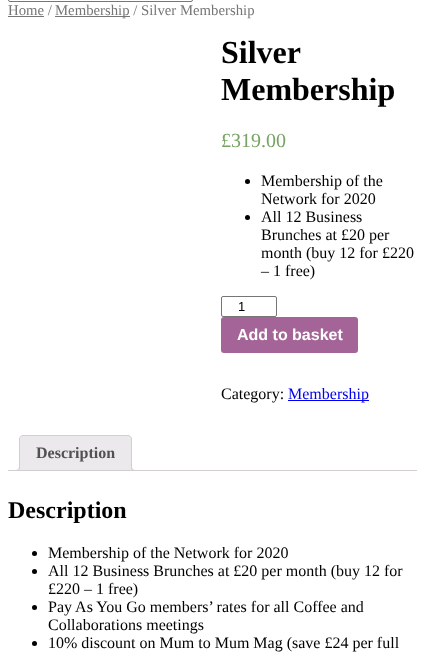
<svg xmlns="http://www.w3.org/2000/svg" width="425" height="654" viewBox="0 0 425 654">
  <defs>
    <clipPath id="clip1"><rect x="8" y="435" width="409" height="36"/></clipPath>
  </defs>
  <rect width="100%" height="100%" fill="rgb(255,255,255)"/>
  <rect x="8.5" y="-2.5" width="184" height="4" rx="1.5" fill="none" stroke="rgb(118,118,118)"/>
  <text x="8" y="15" font-family="Liberation Serif" font-size="14.75" fill="rgb(118,118,118)">Home /</text>
  <rect x="8" y="16" width="36" height="1" fill="rgb(118,118,118)"/>
  <rect x="55" y="16" width="75" height="1" fill="rgb(118,118,118)"/>
  <text x="55" y="15" font-family="Liberation Serif" font-size="14.75" fill="rgb(118,118,118)">Membership / Silver Membership</text>
  <g font-family="Liberation Serif" font-size="32" font-weight="bold" fill="rgb(0,0,0)">
    <text>
      <tspan x="221" y="63">Silver</tspan>
      <tspan x="221" y="100">Membership</tspan>
    </text>
  </g>
  <text x="221" y="147" font-family="Liberation Serif" font-size="20" fill="rgb(119,164,100)">£319.00</text>
  <circle cx="247.5" cy="181.5" r="2.5" fill="rgb(0,0,0)"/>
  <g font-family="Liberation Serif" font-size="16" fill="rgb(0,0,0)">
    <text>
      <tspan x="261" y="186">Membership of the</tspan>
      <tspan x="261" y="204">Network for 2020</tspan>
    </text>
  </g>
  <circle cx="247.5" cy="217.5" r="2.5" fill="rgb(0,0,0)"/>
  <g font-family="Liberation Serif" font-size="16" fill="rgb(0,0,0)">
    <text>
      <tspan x="261" y="222">All 12 Business</tspan>
      <tspan x="261" y="240">Brunches at £20 per</tspan>
      <tspan x="261" y="258">month (buy 12 for £220</tspan>
      <tspan x="261" y="276">– 1 free)</tspan>
    </text>
  </g>
  <rect x="221.5" y="296.5" width="55" height="20" rx="1.5" fill="none" stroke="rgb(118,118,118)"/>
  <text x="238" y="311" font-family="Liberation Sans" font-size="13" fill="rgb(0,0,0)">1</text>
  <rect x="221" y="317" width="137" height="36" rx="3" fill="rgb(164,100,151)"/>
  <text x="237" y="340" font-family="Liberation Sans" font-size="16" font-weight="bold" fill="rgb(255,255,255)">Add to basket</text>
  <text x="221" y="399" font-family="Liberation Serif" font-size="16" fill="rgb(0,0,0)">Category:</text>
  <rect x="288" y="400" width="81" height="1" fill="rgb(0,0,238)"/>
  <text x="288" y="399" font-family="Liberation Serif" font-size="16" fill="rgb(0,0,238)">Membership</text>
  <path d="M23 435.5H128C130 435.5 131.5 437 131.5 439V470.5H19.5V439C19.5 437 21 435.5 23 435.5Z" fill="rgb(235,233,235)" stroke="rgb(211,206,210)"/>
  <text x="36" y="458" font-family="Liberation Serif" font-size="16" font-weight="bold" fill="rgb(81,81,81)">Description</text>
  <g clip-path="url(#clip1)">
    <path d="M17 471V473C20.5 473 22 471.5 22 468H20C19.5 469.5 18.5 470.5 17 471Z" fill="rgb(235,233,235)"/>
  </g>
  <path d="M15 466H20C20 469.5 18.5 471 15 471ZM15 466H19C19 469 18 470 15 470Z" fill="rgb(211,206,210)" fill-rule="evenodd"/>
  <g clip-path="url(#clip1)">
    <path d="M129 468C129 471.5 130.5 473 134 473V471C132.5 470.5 131.5 469.5 131 468Z" fill="rgb(235,233,235)"/>
  </g>
  <path d="M131 466H136V471C133.5 471 131 470 131 467ZM132 466H136V470C134 470 132 469.5 132 467Z" fill="rgb(211,206,210)" fill-rule="evenodd"/>
  <rect x="8" y="470" width="409" height="1" fill="rgb(211,206,210)"/>
  <text x="8" y="518" font-family="Liberation Serif" font-size="24" font-weight="bold" fill="rgb(0,0,0)">Description</text>
  <circle cx="34.5" cy="553.5" r="2.5" fill="rgb(0,0,0)"/>
  <text x="48" y="558" font-family="Liberation Serif" font-size="16" fill="rgb(0,0,0)">Membership of the Network for 2020</text>
  <circle cx="34.5" cy="571.5" r="2.5" fill="rgb(0,0,0)"/>
  <g font-family="Liberation Serif" font-size="16" fill="rgb(0,0,0)">
    <text>
      <tspan x="48" y="576">All 12 Business Brunches at £20 per month (buy 12 for</tspan>
      <tspan x="48" y="594">£220 – 1 free)</tspan>
    </text>
  </g>
  <circle cx="34.5" cy="607.5" r="2.5" fill="rgb(0,0,0)"/>
  <g font-family="Liberation Serif" font-size="16" fill="rgb(0,0,0)">
    <text>
      <tspan x="48" y="612">Pay As You Go members’ rates for all Coffee and</tspan>
      <tspan x="48" y="630">Collaborations meetings</tspan>
    </text>
  </g>
  <circle cx="34.5" cy="643.5" r="2.5" fill="rgb(0,0,0)"/>
  <text x="48" y="648" font-family="Liberation Serif" font-size="16" fill="rgb(0,0,0)">10% discount on Mum to Mum Mag (save £24 per full</text>
</svg>
